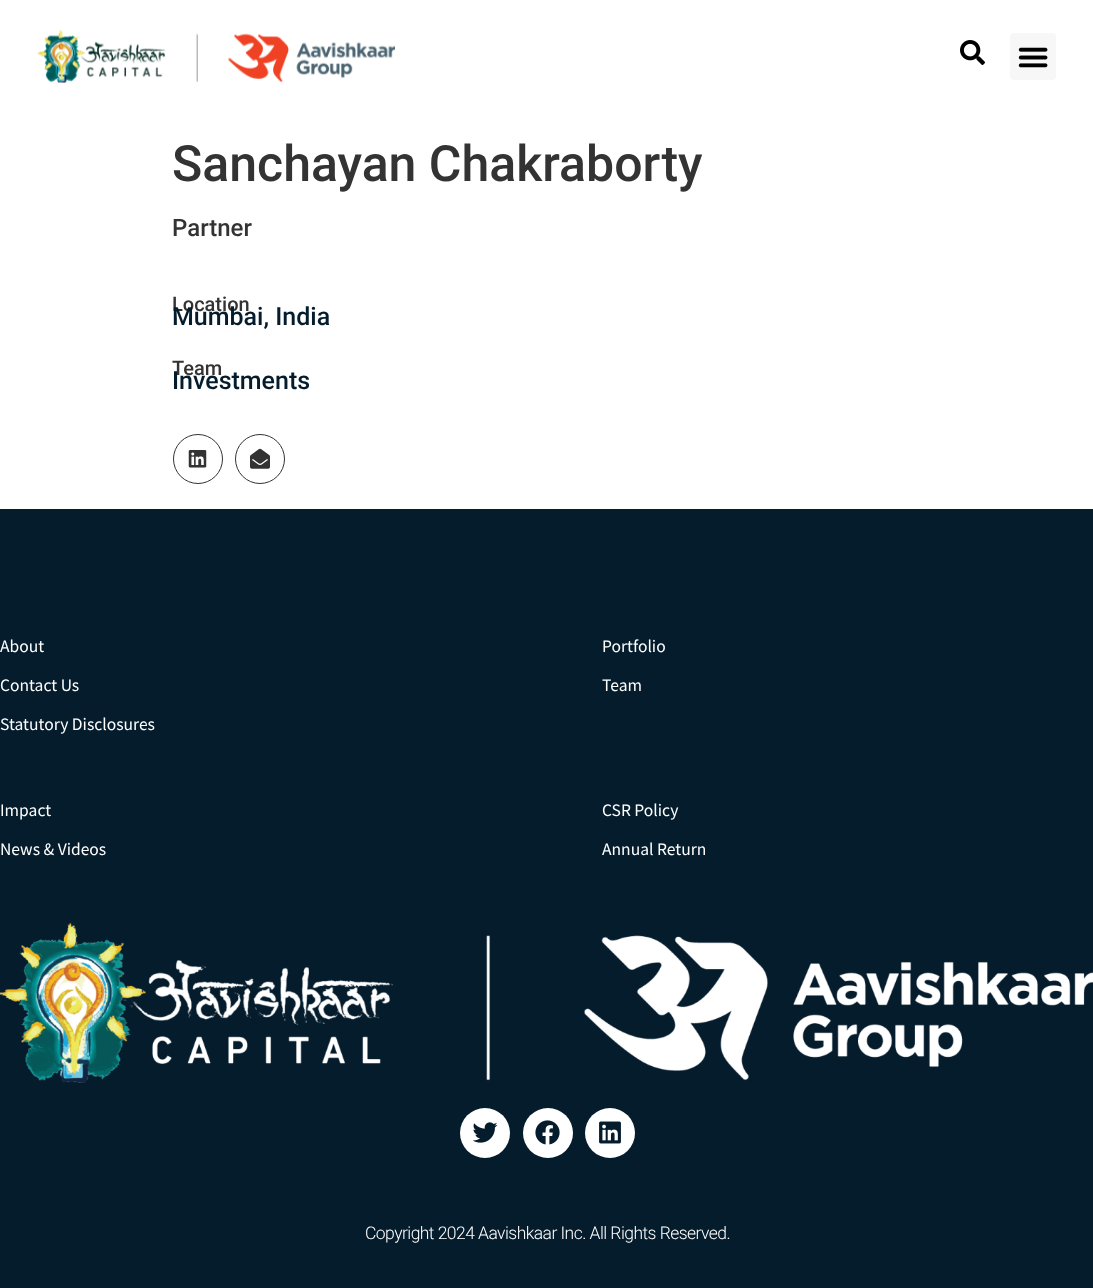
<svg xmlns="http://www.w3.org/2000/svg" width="1093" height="1288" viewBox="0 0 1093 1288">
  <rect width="100%" height="100%" fill="rgb(255,255,255)"/>
  <image x="37" y="29" width="358" height="54" href="pic1.png"/>
  <image x="960" y="40" width="25" height="25" href="pic2.png"/>
  <rect x="1010" y="33" width="46" height="47" rx="4" fill="rgb(247,247,247)"/>
  <image x="1018" y="47" width="30" height="21" href="pic3.png"/>
  <text x="172" y="181" font-family="Roboto" font-size="50" font-weight="500" fill="rgb(51,51,51)">Sanchayan Chakraborty</text>
  <text x="172" y="236" font-family="Roboto" font-size="24" font-weight="500" fill="rgb(51,51,51)">Partner</text>
  <text x="172" y="311" font-family="Roboto" font-size="20" font-weight="500" fill="rgb(51,51,51)">Location</text>
  <text x="172" y="325" font-family="Roboto" font-size="25" font-weight="500" fill="rgb(5,28,45)">Mumbai, India</text>
  <text x="172" y="375" font-family="Roboto" font-size="20" font-weight="500" fill="rgb(51,51,51)">Team</text>
  <text x="172" y="389" font-family="Roboto" font-size="25" font-weight="500" fill="rgb(5,28,45)">Investments</text>
  <circle cx="198" cy="459" r="24.5" fill="none" stroke="rgb(51,51,51)"/>
  <image x="188" y="450" width="19" height="18" href="pic4.png"/>
  <circle cx="260" cy="459" r="24.5" fill="none" stroke="rgb(51,51,51)"/>
  <image x="250" y="448" width="20" height="21" href="pic5.png"/>
  <rect x="0" y="509" width="1093" height="779" fill="rgb(5,28,45)"/>
  <g font-family="Source Sans Pro" font-size="17.5" fill="rgb(255,255,255)">
    <text x="0" y="652">About</text>
    <text x="0" y="691">Contact Us</text>
    <text x="0" y="730">Statutory Disclosures</text>
    <text x="602" y="652">Portfolio</text>
    <text x="602" y="691">Team</text>
    <text x="0" y="816">Impact</text>
    <text x="0" y="855">News &amp; Videos</text>
    <text x="602" y="816">CSR Policy</text>
    <text x="602" y="855">Annual Return</text>
  </g>
  <image x="0" y="922" width="1093" height="161" href="pic6.png"/>
  <circle cx="485" cy="1133" r="25" fill="rgb(255,255,255)"/>
  <image x="473" y="1122" width="25" height="21" href="pic7.png"/>
  <circle cx="548" cy="1133" r="25" fill="rgb(255,255,255)"/>
  <image x="535" y="1120" width="25" height="25" href="pic8.png"/>
  <circle cx="610" cy="1133" r="25" fill="rgb(255,255,255)"/>
  <image x="599" y="1121" width="22" height="23" href="pic9.png"/>
  <text x="365" y="1239" font-family="Roboto" font-size="17.5" font-weight="300" letter-spacing="-0.55" fill="rgb(255,255,255)">Copyright 2024 Aavishkaar Inc. All Rights Reserved.</text>
</svg>
